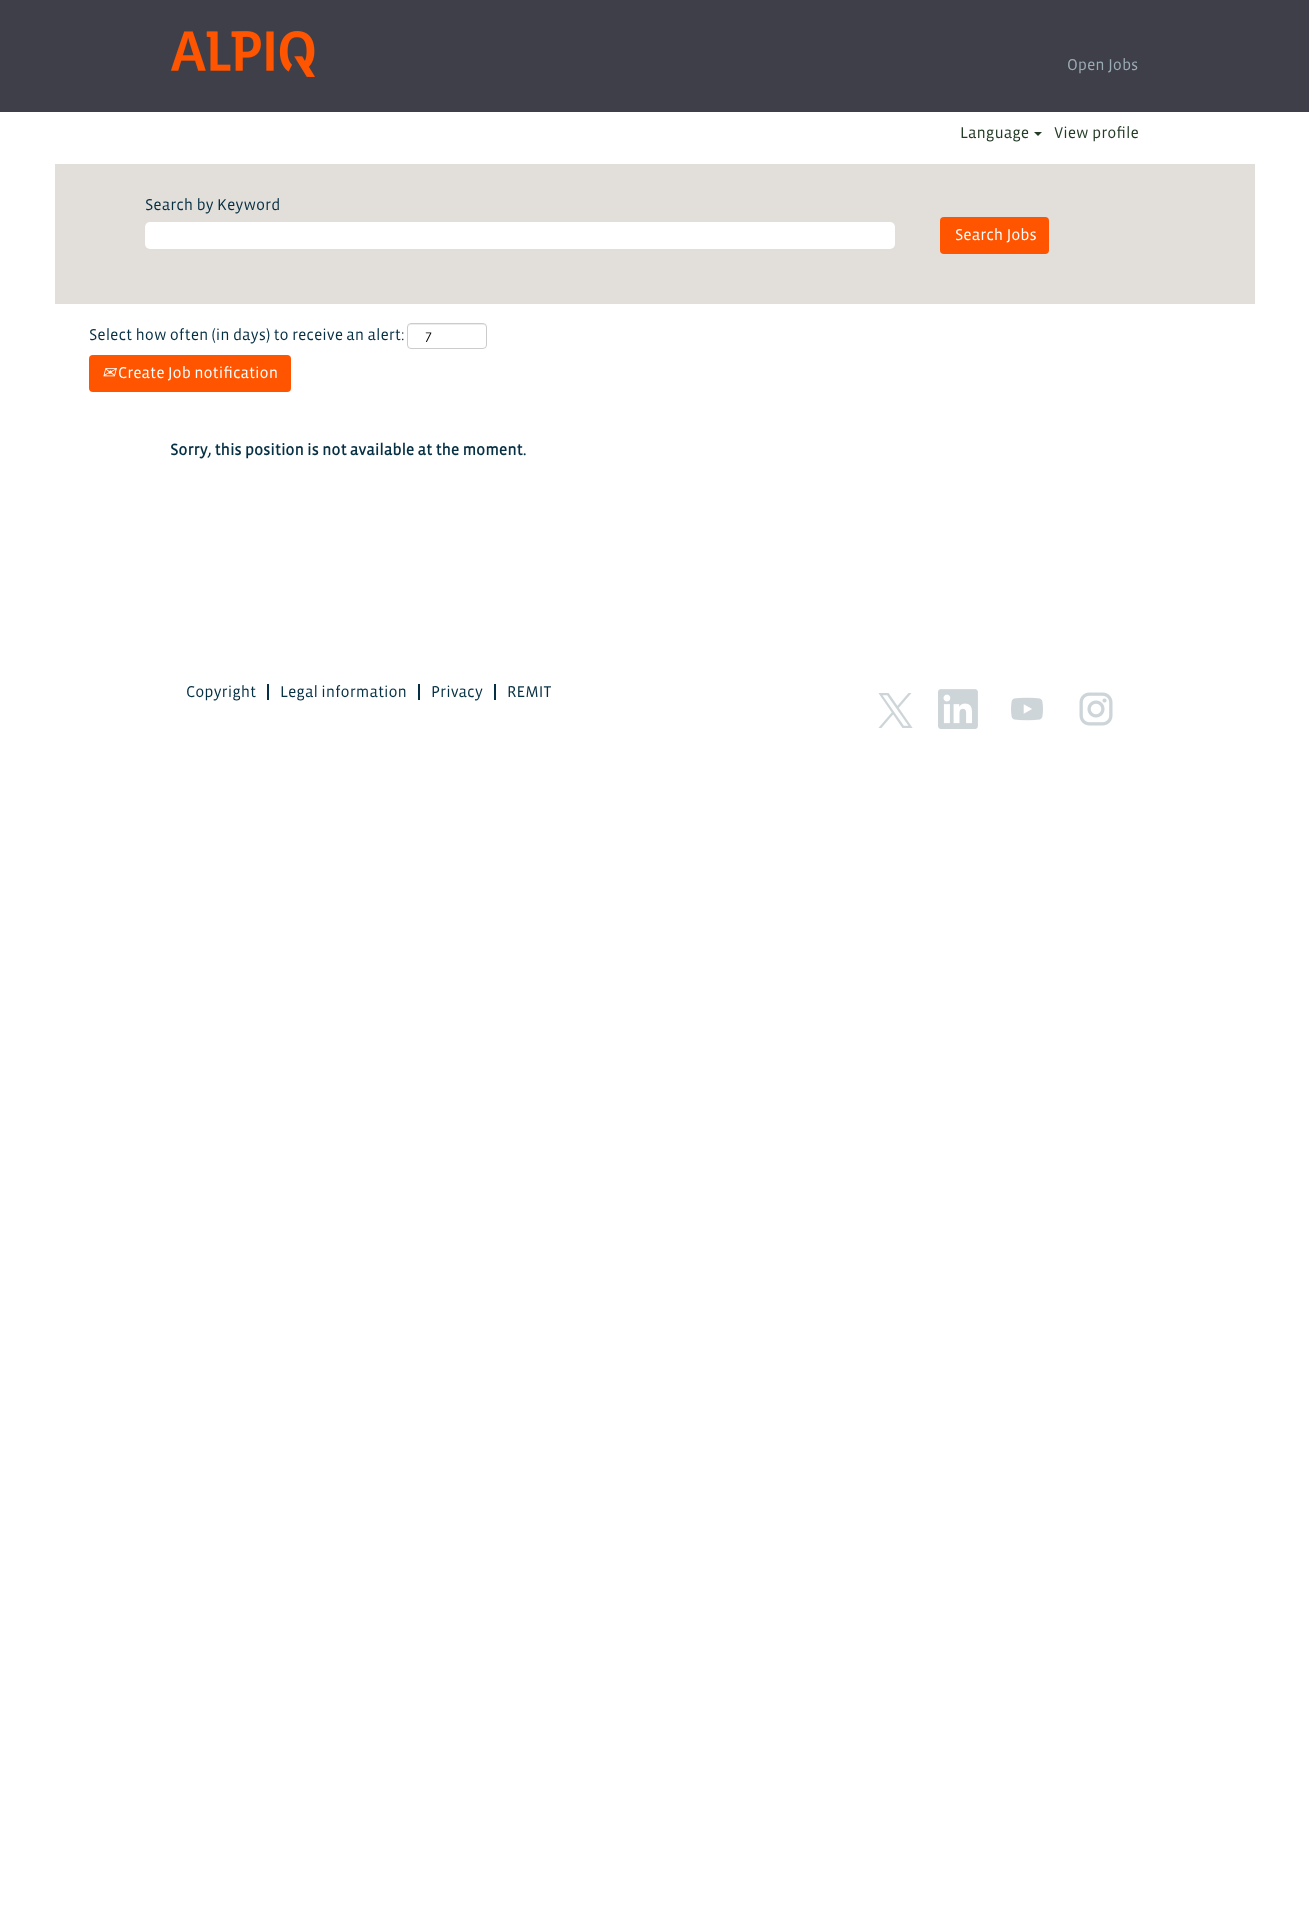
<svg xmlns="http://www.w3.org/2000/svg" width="1309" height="1923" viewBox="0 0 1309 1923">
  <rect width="100%" height="100%" fill="rgb(255,255,255)"/>
  <rect x="0" y="0" width="1309" height="112" fill="rgb(62,63,73)"/>
  <image x="171" y="31" width="144" height="46" href="pic1.png"/>
  <text x="1067" y="70" font-family="'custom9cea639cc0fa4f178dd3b'" font-size="16" fill="rgb(155,172,180)">Open Jobs</text>
  <text x="960" y="138" font-family="'custom9cea639cc0fa4f178dd3b'" font-size="16" fill="rgb(36,59,38)">Language</text>
  <path d="M1034 132H1042L1038 136Z" fill="rgb(36,59,38)"/>
  <text x="1054" y="138" font-family="'custom9cea639cc0fa4f178dd3b'" font-size="16" fill="rgb(36,59,38)">View profile</text>
  <rect x="55" y="164" width="1200" height="140" fill="rgb(226,223,219)"/>
  <text x="145" y="210" font-family="'custom9cea639cc0fa4f178dd3b'" font-size="16" fill="rgb(5,47,67)">Search by Keyword</text>
  <rect x="145" y="222" width="750" height="27" rx="5" fill="rgb(255,255,255)"/>
  <rect x="940" y="217" width="109" height="37" rx="4" fill="rgb(255,84,0)"/>
  <text x="955" y="240" font-family="'custom9cea639cc0fa4f178dd3b'" font-size="16" fill="rgb(255,255,255)">Search Jobs</text>
  <text x="89" y="340" font-family="'custom9cea639cc0fa4f178dd3b'" font-size="16" fill="rgb(5,47,67)">Select how often (in days) to receive an alert:</text>
  <path d="M411 325H483C485 325 486 326 486 328C486 321 475 324 471 324H423C419 324 408 321 408 328C408 326 409 325 411 325Z" fill="rgb(236,236,236)"/>
  <rect x="407.5" y="323.5" width="79" height="25" rx="3.5" fill="none" stroke="rgb(204,204,204)"/>
  <text x="425" y="340" font-family="'custom9cea639cc0fa4f178dd3b'" font-size="14" fill="rgb(0,0,0)">7</text>
  <rect x="89" y="355" width="202" height="37" rx="4" fill="rgb(255,84,0)"/>
  <text x="102" y="378" font-family="DejaVu Sans" font-size="16" font-style="italic" fill="rgb(255,255,255)">✉</text>
  <text x="118" y="378" font-family="'custom9cea639cc0fa4f178dd3b'" font-size="16" fill="rgb(255,255,255)">Create Job notification</text>
  <text x="170" y="455" font-family="'custom9cea639cc0fa4f178dd3b'" font-size="16" font-weight="bold" fill="rgb(5,47,67)">Sorry, this position is not available at the moment.</text>
  <rect x="267" y="684" width="2" height="16" fill="rgb(5,47,67)"/>
  <text x="186" y="697" font-family="'custom9cea639cc0fa4f178dd3b'" font-size="16" fill="rgb(5,47,67)">Copyright</text>
  <rect x="418" y="684" width="2" height="16" fill="rgb(5,47,67)"/>
  <text x="280" y="697" font-family="'custom9cea639cc0fa4f178dd3b'" font-size="16" fill="rgb(5,47,67)">Legal information</text>
  <rect x="494" y="684" width="2" height="16" fill="rgb(5,47,67)"/>
  <g font-family="'custom9cea639cc0fa4f178dd3b'" font-size="16" fill="rgb(5,47,67)">
    <text x="431" y="697">Privacy</text>
    <text x="507" y="697">REMIT</text>
  </g>
  <image x="878" y="693" width="35" height="35" href="pic2.png"/>
  <image x="938" y="689" width="40" height="40" href="pic3.png"/>
  <image x="1011" y="697" width="32" height="24" href="pic4.png"/>
  <image x="1079" y="692" width="34" height="34" href="pic5.png"/>
</svg>
